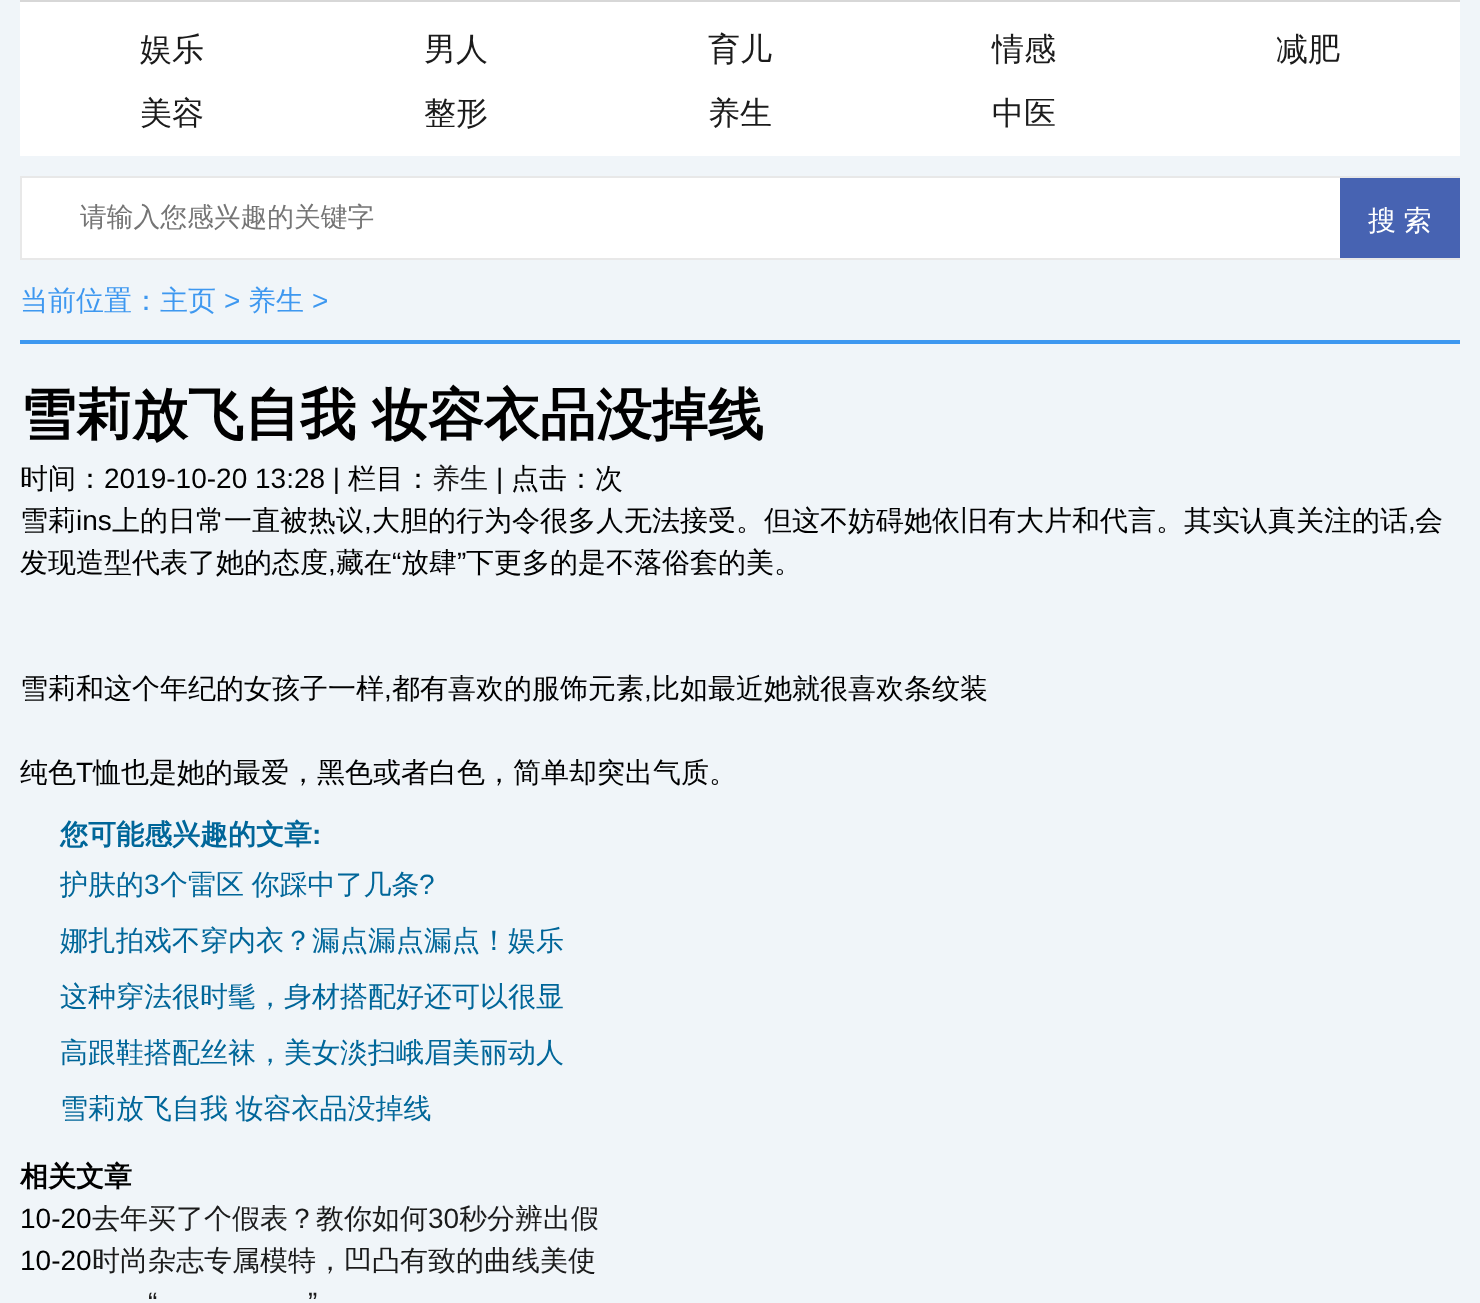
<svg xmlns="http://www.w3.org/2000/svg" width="1480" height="1303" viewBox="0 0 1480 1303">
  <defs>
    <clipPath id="clip1"><rect x="20" y="156" width="1440" height="104"/></clipPath>
  </defs>
  <rect width="100%" height="100%" fill="rgb(240,245,249)"/>
  <rect x="20" y="2" width="1440" height="154" fill="rgb(255,255,255)"/>
  <rect x="20" y="0" width="1440" height="2" fill="rgb(215,215,215)"/>
  <g font-family="WenQuanYi Zen Hei" font-size="32" font-weight="500" fill="rgb(27,27,27)">
    <text x="140" y="60">娱乐</text>
    <text x="424" y="60">男人</text>
    <text x="708" y="60">育儿</text>
    <text x="992" y="60">情感</text>
    <text x="1276" y="60">减肥</text>
    <text x="140" y="124">美容</text>
    <text x="424" y="124">整形</text>
    <text x="708" y="124">养生</text>
    <text x="992" y="124">中医</text>
  </g>
  <rect x="22" y="178" width="1318" height="80" fill="rgb(255,255,255)"/>
  <g clip-path="url(#clip1)">
    <rect x="21" y="177" width="1446" height="82" fill="none" stroke="rgb(232,232,232)" stroke-width="2"/>
  </g>
  <text x="80" y="226" font-family="WenQuanYi Zen Hei" font-size="26.75" font-weight="500" fill="rgb(117,117,117)">请输入您感兴趣的关键字</text>
  <rect x="1340" y="178" width="120" height="80" fill="rgb(71,99,178)"/>
  <text x="1368" y="230" word-spacing="-1" font-family="WenQuanYi Zen Hei" font-size="28" font-weight="500" fill="rgb(255,255,255)">搜 索</text>
  <rect x="20" y="340" width="1440" height="4" fill="rgb(62,152,240)"/>
  <text x="20" y="310" font-family="WenQuanYi Zen Hei" font-size="28" font-weight="500" fill="rgb(62,152,240)">当前位置：主页</text>
  <text x="224" y="310" font-family="Liberation Sans" font-size="28" fill="rgb(62,152,240)">&gt;</text>
  <text x="248" y="310" font-family="WenQuanYi Zen Hei" font-size="28" font-weight="500" fill="rgb(62,152,240)">养生</text>
  <text x="312" y="310" font-family="Liberation Sans" font-size="28" fill="rgb(62,152,240)">&gt;</text>
  <text x="20" y="434" word-spacing="-1" font-family="WenQuanYi Zen Hei" font-size="56" font-weight="bold" fill="rgb(0,0,0)">雪莉放飞自我 妆容衣品没掉线</text>
  <text x="20" y="488" font-family="WenQuanYi Zen Hei" font-size="28" font-weight="500" fill="rgb(0,0,0)">时间：</text>
  <text x="104" y="488" font-family="Liberation Sans" font-size="28" fill="rgb(0,0,0)">2019-10-20 13:28 |</text>
  <text x="348" y="488" font-family="WenQuanYi Zen Hei" font-size="28" font-weight="500" fill="rgb(0,0,0)">栏目：</text>
  <text x="432" y="488" font-family="WenQuanYi Zen Hei" font-size="28" font-weight="500" fill="rgb(27,27,27)">养生</text>
  <text x="496" y="488" font-family="Liberation Sans" font-size="28" fill="rgb(0,0,0)">|</text>
  <g font-family="WenQuanYi Zen Hei" font-size="28" font-weight="500" fill="rgb(0,0,0)">
    <text x="511" y="488">点击：次</text>
    <text x="20" y="530">雪莉</text>
  </g>
  <text x="76" y="530" font-family="Liberation Sans" font-size="28" fill="rgb(0,0,0)">ins</text>
  <text x="112" y="530" font-family="WenQuanYi Zen Hei" font-size="28" font-weight="500" fill="rgb(0,0,0)">上的日常一直被热议</text>
  <text x="364" y="530" font-family="Liberation Sans" font-size="28" fill="rgb(0,0,0)">,</text>
  <text x="372" y="530" font-family="WenQuanYi Zen Hei" font-size="28" font-weight="500" fill="rgb(0,0,0)">大胆的行为令很多人无法接受。但这不妨碍她依旧有大片和代言。其实认真关注的话</text>
  <text x="1408" y="530" font-family="Liberation Sans" font-size="28" fill="rgb(0,0,0)">,</text>
  <g font-family="WenQuanYi Zen Hei" font-size="28" font-weight="500" fill="rgb(0,0,0)">
    <text x="1415" y="530">会</text>
    <text x="20" y="572">发现造型代表了她的态度</text>
    <text x="336" y="572">藏在</text>
  </g>
  <text x="392" y="572" font-family="Liberation Sans" font-size="28" fill="rgb(0,0,0)">“</text>
  <text x="401" y="572" font-family="WenQuanYi Zen Hei" font-size="28" font-weight="500" fill="rgb(0,0,0)">放肆</text>
  <text x="457" y="572" font-family="Liberation Sans" font-size="28" fill="rgb(0,0,0)">”</text>
  <text x="466" y="572" font-family="WenQuanYi Zen Hei" font-size="28" font-weight="500" fill="rgb(0,0,0)">下更多的是不落俗套的美。</text>
  <text x="328" y="572" font-family="Liberation Sans" font-size="28" fill="rgb(0,0,0)">,</text>
  <text x="20" y="698" font-family="WenQuanYi Zen Hei" font-size="28" font-weight="500" fill="rgb(0,0,0)">雪莉和这个年纪的女孩子一样</text>
  <text x="384" y="698" font-family="Liberation Sans" font-size="28" fill="rgb(0,0,0)">,</text>
  <text x="392" y="698" font-family="WenQuanYi Zen Hei" font-size="28" font-weight="500" fill="rgb(0,0,0)">都有喜欢的服饰元素</text>
  <text x="644" y="698" font-family="Liberation Sans" font-size="28" fill="rgb(0,0,0)">,</text>
  <g font-family="WenQuanYi Zen Hei" font-size="28" font-weight="500" fill="rgb(0,0,0)">
    <text x="652" y="698">比如最近她就很喜欢条纹装</text>
    <text x="20" y="782">纯色</text>
  </g>
  <text x="76" y="782" font-family="Liberation Sans" font-size="28" fill="rgb(0,0,0)">T</text>
  <text x="93" y="782" font-family="WenQuanYi Zen Hei" font-size="28" font-weight="500" fill="rgb(0,0,0)">恤也是她的最爱，黑色或者白色，简单却突出气质。</text>
  <text x="60" y="844" font-family="WenQuanYi Zen Hei" font-size="28" font-weight="bold" fill="rgb(0,102,153)">您可能感兴趣的文章</text>
  <text x="312" y="844" font-family="Liberation Sans" font-size="28" font-weight="bold" fill="rgb(0,102,153)">:</text>
  <text x="60" y="894" font-family="WenQuanYi Zen Hei" font-size="28" font-weight="500" fill="rgb(0,102,153)">护肤的</text>
  <text x="144" y="894" font-family="Liberation Sans" font-size="28" fill="rgb(0,102,153)">3</text>
  <text x="160" y="894" word-spacing="-1" font-family="WenQuanYi Zen Hei" font-size="28" font-weight="500" fill="rgb(0,102,153)">个雷区 你踩中了几条</text>
  <text x="419" y="894" font-family="Liberation Sans" font-size="28" fill="rgb(0,102,153)">?</text>
  <g font-family="WenQuanYi Zen Hei" font-size="28" font-weight="500" fill="rgb(0,102,153)">
    <text x="60" y="950">娜扎拍戏不穿内衣？漏点漏点漏点！娱乐</text>
    <text x="60" y="1006">这种穿法很时髦，身材搭配好还可以很显</text>
    <text x="60" y="1062">高跟鞋搭配丝袜，美女淡扫峨眉美丽动人</text>
    <text x="60" y="1118" word-spacing="-1">雪莉放飞自我 妆容衣品没掉线</text>
  </g>
  <text x="20" y="1186" font-family="WenQuanYi Zen Hei" font-size="28" font-weight="bold" fill="rgb(0,0,0)">相关文章</text>
  <text x="20" y="1228" font-family="Liberation Sans" font-size="28" fill="rgb(0,0,0)">10-20</text>
  <text x="92" y="1228" font-family="WenQuanYi Zen Hei" font-size="28" font-weight="500" fill="rgb(27,27,27)">去年买了个假表？教你如何</text>
  <text x="428" y="1228" font-family="Liberation Sans" font-size="28" fill="rgb(27,27,27)">30</text>
  <text x="459" y="1228" font-family="WenQuanYi Zen Hei" font-size="28" font-weight="500" fill="rgb(27,27,27)">秒分辨出假</text>
  <text x="20" y="1270" font-family="Liberation Sans" font-size="28" fill="rgb(0,0,0)">10-20</text>
  <text x="92" y="1270" font-family="WenQuanYi Zen Hei" font-size="28" font-weight="500" fill="rgb(27,27,27)">时尚杂志专属模特，凹凸有致的曲线美使</text>
  <g font-family="Liberation Sans" font-size="28" fill="rgb(27,27,27)">
    <text x="148" y="1312">“</text>
    <text x="308" y="1312">”</text>
  </g>
</svg>
